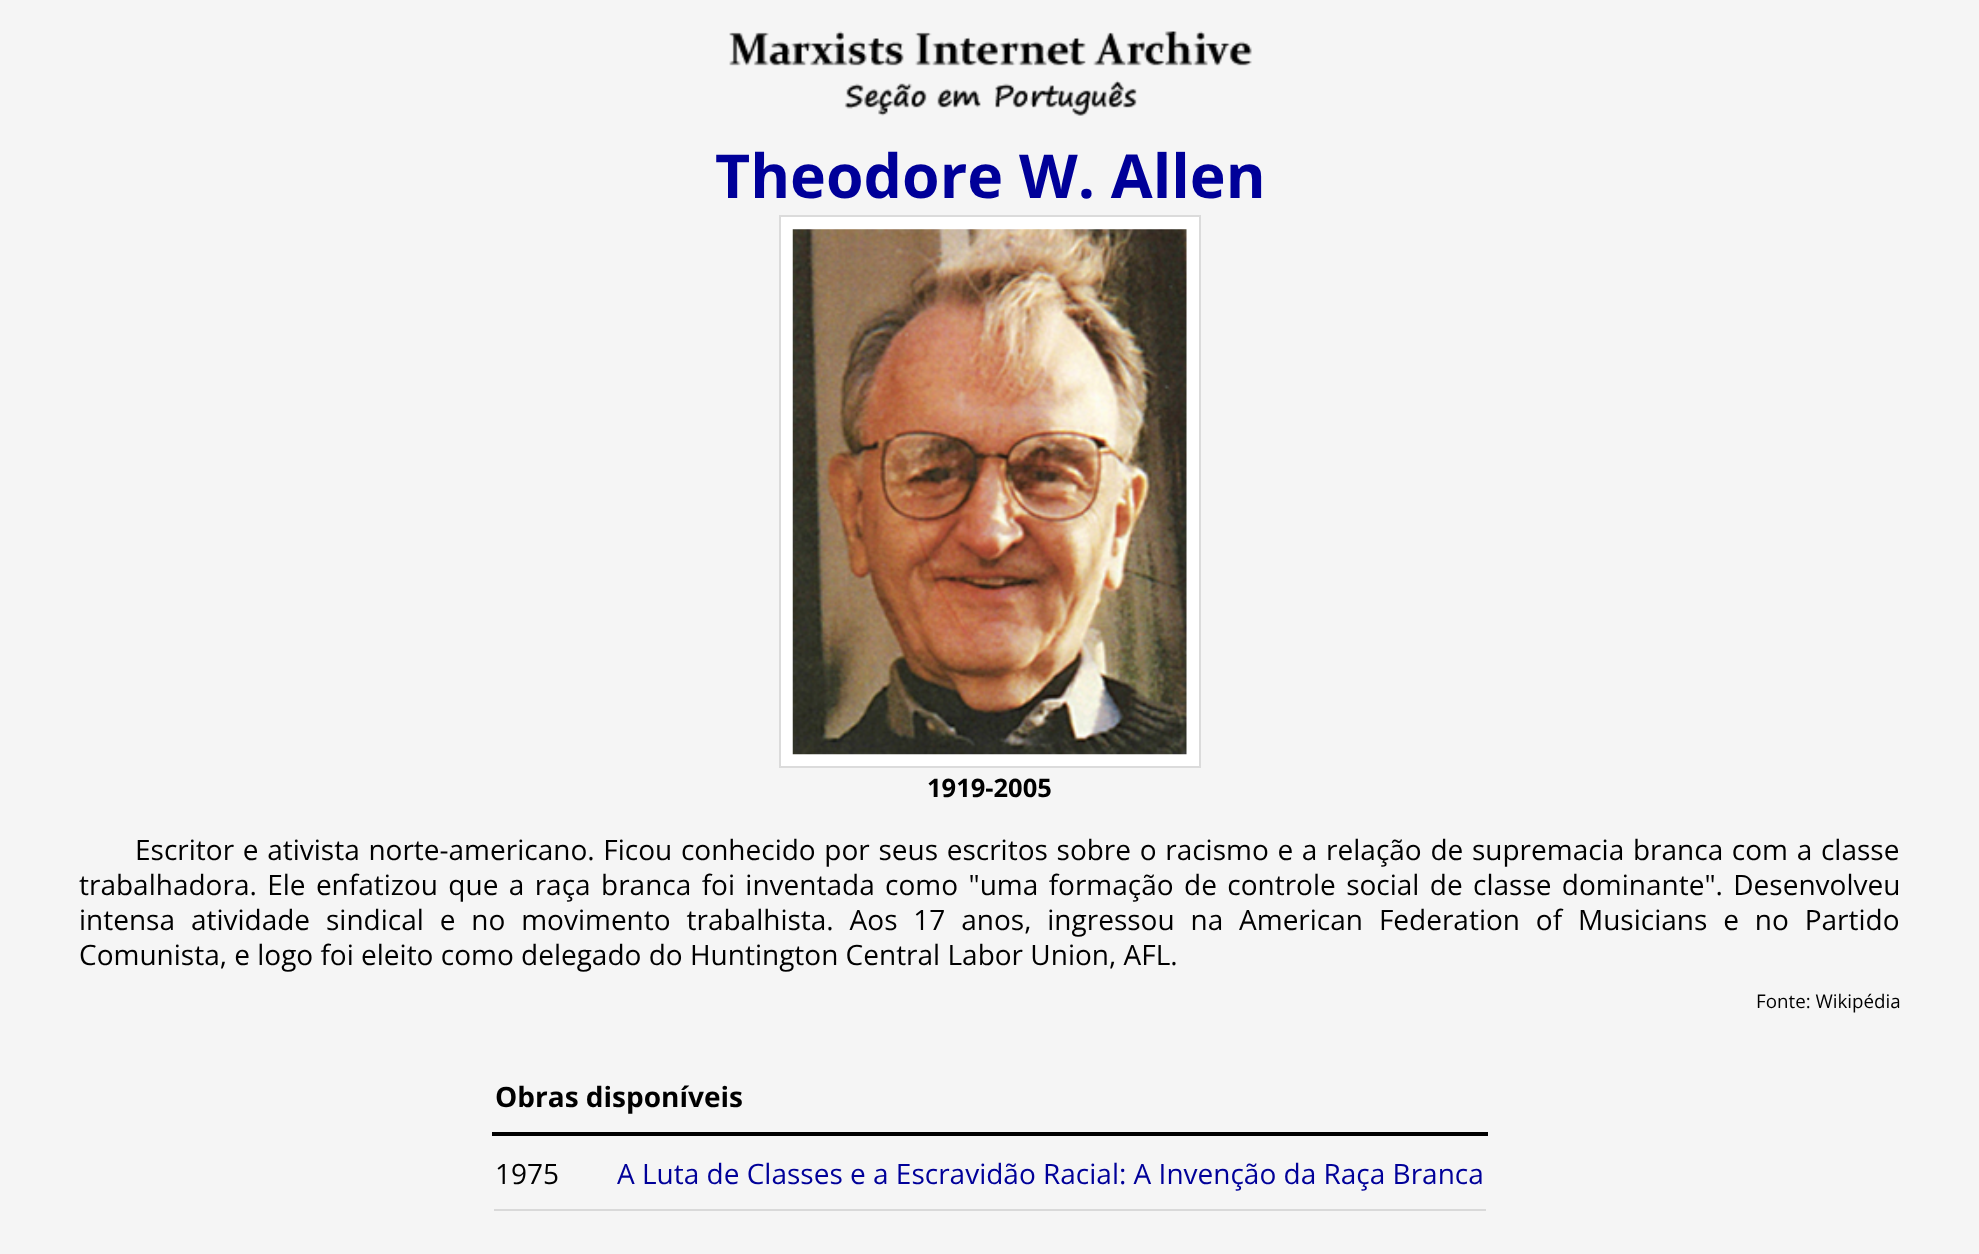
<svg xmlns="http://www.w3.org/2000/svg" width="1979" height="1254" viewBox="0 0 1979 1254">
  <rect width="100%" height="100%" fill="rgb(245,245,245)"/>
  <image x="729" y="31" width="523" height="85" href="pic1.png"/>
  <text x="715" y="198" font-family="Open Sans" font-size="60.75" font-weight="bold" fill="rgb(0,0,153)">Theodore W. Allen</text>
  <rect x="780" y="216" width="420" height="551" fill="rgb(255,255,255)" stroke="rgb(219,219,219)" stroke-width="2"/>
  <image x="792" y="229" width="395" height="526" href="pic2.png"/>
  <text x="927" y="797" font-family="Open Sans" font-size="25.5" font-weight="bold" fill="rgb(0,0,0)">1919-2005</text>
  <g font-family="Open Sans" font-size="28" fill="rgb(0,0,0)">
    <text x="135" y="860" word-spacing="1.4">Escritor e ativista norte-americano. Ficou conhecido por seus escritos sobre o racismo e a relação de supremacia branca com a classe</text>
    <text>
      <tspan x="79" y="895" word-spacing="3.1">trabalhadora. Ele enfatizou que a raça branca foi inventada como "uma formação de controle social de classe dominante". Desenvolveu</tspan>
      <tspan x="79" y="930" word-spacing="8.6">intensa atividade sindical e no movimento trabalhista. Aos 17 anos, ingressou na</tspan>
    </text>
    <text x="1239" y="930" word-spacing="8.6">American Federation of Musicians e no Partido</text>
    <text x="79" y="965">Comunista, e logo foi eleito como delegado do Huntington Central Labor Union, AFL.</text>
  </g>
  <text x="1756" y="1008" font-family="Open Sans" font-size="18.75" fill="rgb(0,0,0)">Fonte: Wikipédia</text>
  <rect x="492" y="1132" width="996" height="4" fill="rgb(0,0,0)"/>
  <text x="495" y="1107" font-family="Open Sans" font-size="28" font-weight="bold" fill="rgb(0,0,0)">Obras disponíveis</text>
  <rect x="494" y="1209" width="992" height="2" fill="rgb(217,217,217)"/>
  <text x="495" y="1184" font-family="Open Sans" font-size="28" fill="rgb(0,0,0)">1975</text>
  <text x="617" y="1184" font-family="Open Sans" font-size="28" fill="rgb(0,0,153)">A Luta de Classes e a Escravidão Racial: A Invenção da Raça Branca</text>
</svg>
